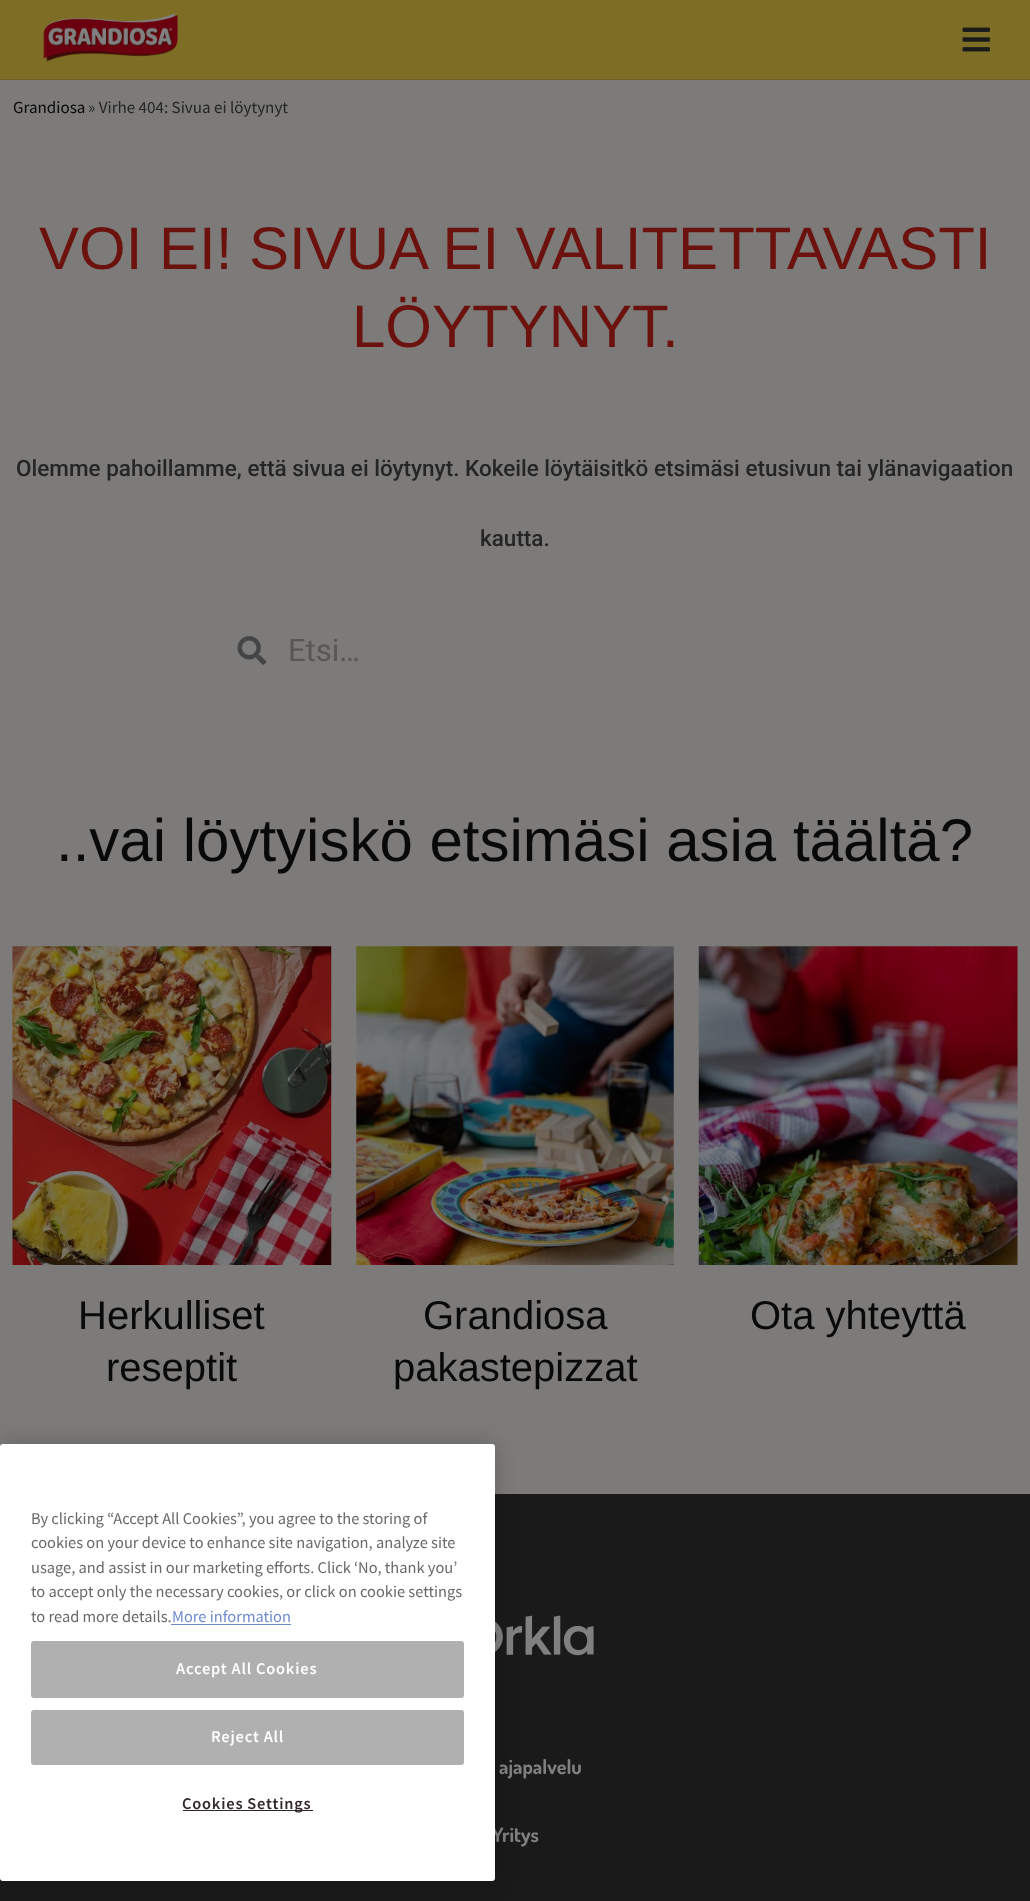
<svg xmlns="http://www.w3.org/2000/svg" width="1030" height="1901" viewBox="0 0 1030 1901">
  <rect width="100%" height="100%" fill="rgb(124,123,121)"/>
  <rect x="0" y="0" width="1030" height="79" fill="rgb(126,109,36)"/>
  <rect x="0" y="79" width="1030" height="1" fill="rgb(111,97,35)"/>
  <image x="43" y="13" width="135" height="49" href="pic1.png"/>
  <image x="962" y="27" width="28" height="25" href="pic2.png"/>
  <text x="13" y="113" font-family="Source Sans Pro" font-size="17" fill="rgb(9,9,9)">Grandiosa</text>
  <text x="88" y="113" font-family="Source Sans Pro" font-size="17" fill="rgb(37,37,37)">» Virhe 404: Sivua ei löytynyt</text>
  <g font-family="Liberation Sans" font-size="60" fill="rgb(108,18,14)">
    <text x="39" y="269">VOI EI! SIVUA EI VALITETTAVASTI</text>
    <text x="352" y="347">LÖYTYNYT.</text>
  </g>
  <g font-family="Roboto" font-size="22.5" font-weight="500" fill="rgb(37,37,37)">
    <text x="16" y="476">Olemme pahoillamme, että sivua ei löytynyt. Kokeile löytäisitkö etsimäsi etusivun tai ylänavigaation</text>
    <text x="480" y="546">kautta.</text>
  </g>
  <image x="237" y="636" width="30" height="29" href="pic3.png"/>
  <text x="288" y="661" font-family="Roboto" font-size="31" fill="rgb(88,87,86)">Etsi…</text>
  <text x="56" y="861" font-family="Liberation Sans" font-size="60" fill="rgb(9,9,9)">..vai löytyiskö etsimäsi asia täältä?</text>
  <image x="12" y="946" width="320" height="319" href="pic4.png"/>
  <g font-family="Liberation Sans" font-size="40" fill="rgb(9,9,9)">
    <text x="78" y="1329">Herkulliset</text>
    <text x="106" y="1381">reseptit</text>
  </g>
  <image x="356" y="946" width="318" height="319" href="pic5.png"/>
  <g font-family="Liberation Sans" font-size="40" fill="rgb(9,9,9)">
    <text x="423" y="1329">Grandiosa</text>
    <text x="393" y="1381">pakastepizzat</text>
  </g>
  <image x="698" y="946" width="320" height="319" href="pic6.png"/>
  <text x="750" y="1329" font-family="Liberation Sans" font-size="40" fill="rgb(9,9,9)">Ota yhteyttä</text>
  <rect x="0" y="1494" width="1030" height="407" fill="rgb(27,26,26)"/>
  <image x="495" y="1615" width="99" height="41" href="pic7.png"/>
  <g font-family="Dosis" font-size="20" font-weight="bold" fill="rgb(128,128,128)">
    <text x="499" y="1774">ajapalvelu</text>
    <text x="492" y="1842">Yritys</text>
  </g>
  <rect x="0" y="1444" width="495" height="437" rx="3" fill="rgba(0,0,0,0.2)" filter="blur(11px)"/>
  <rect x="0" y="1444" width="495" height="437" rx="3" fill="rgb(255,255,255)"/>
  <g font-family="Source Sans Pro" font-size="16.4" fill="rgb(105,105,105)">
    <text>
      <tspan x="31" y="1524">By clicking “Accept All Cookies”, you agree to the storing of</tspan>
      <tspan x="31" y="1548">cookies on your device to enhance site navigation, analyze site</tspan>
      <tspan x="31" y="1573">usage, and assist in our marketing efforts. Click ‘No, thank you’</tspan>
      <tspan x="31" y="1597">to accept only the necessary cookies, or click on cookie settings</tspan>
      <tspan x="31" y="1622">to read more details.</tspan>
    </text>
  </g>
  <text x="172" y="1622" font-family="Source Sans Pro" font-size="16.4" fill="rgb(111,139,206)">More information</text>
  <rect x="171" y="1624" width="120" height="1" fill="rgb(111,139,206)"/>
  <rect x="31.5" y="1641.5" width="432" height="56" rx="2" fill="rgb(176,176,176)" stroke="rgb(176,176,176)"/>
  <text x="176" y="1674" font-family="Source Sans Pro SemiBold" font-size="16.4" font-weight="600" letter-spacing="0.8" fill="rgb(255,255,255)">Accept All Cookies</text>
  <rect x="31.5" y="1710.5" width="432" height="54" rx="2" fill="rgb(176,176,176)" stroke="rgb(176,176,176)"/>
  <text x="211" y="1742" font-family="Source Sans Pro SemiBold" font-size="16.4" font-weight="600" letter-spacing="0.8" fill="rgb(255,255,255)">Reject All</text>
  <rect x="183" y="1810" width="130" height="1" fill="rgb(49,40,45)"/>
  <text x="182" y="1809" font-family="Source Sans Pro SemiBold" font-size="16.4" font-weight="600" letter-spacing="0.8" fill="rgb(49,40,45)">Cookies Settings</text>
</svg>
